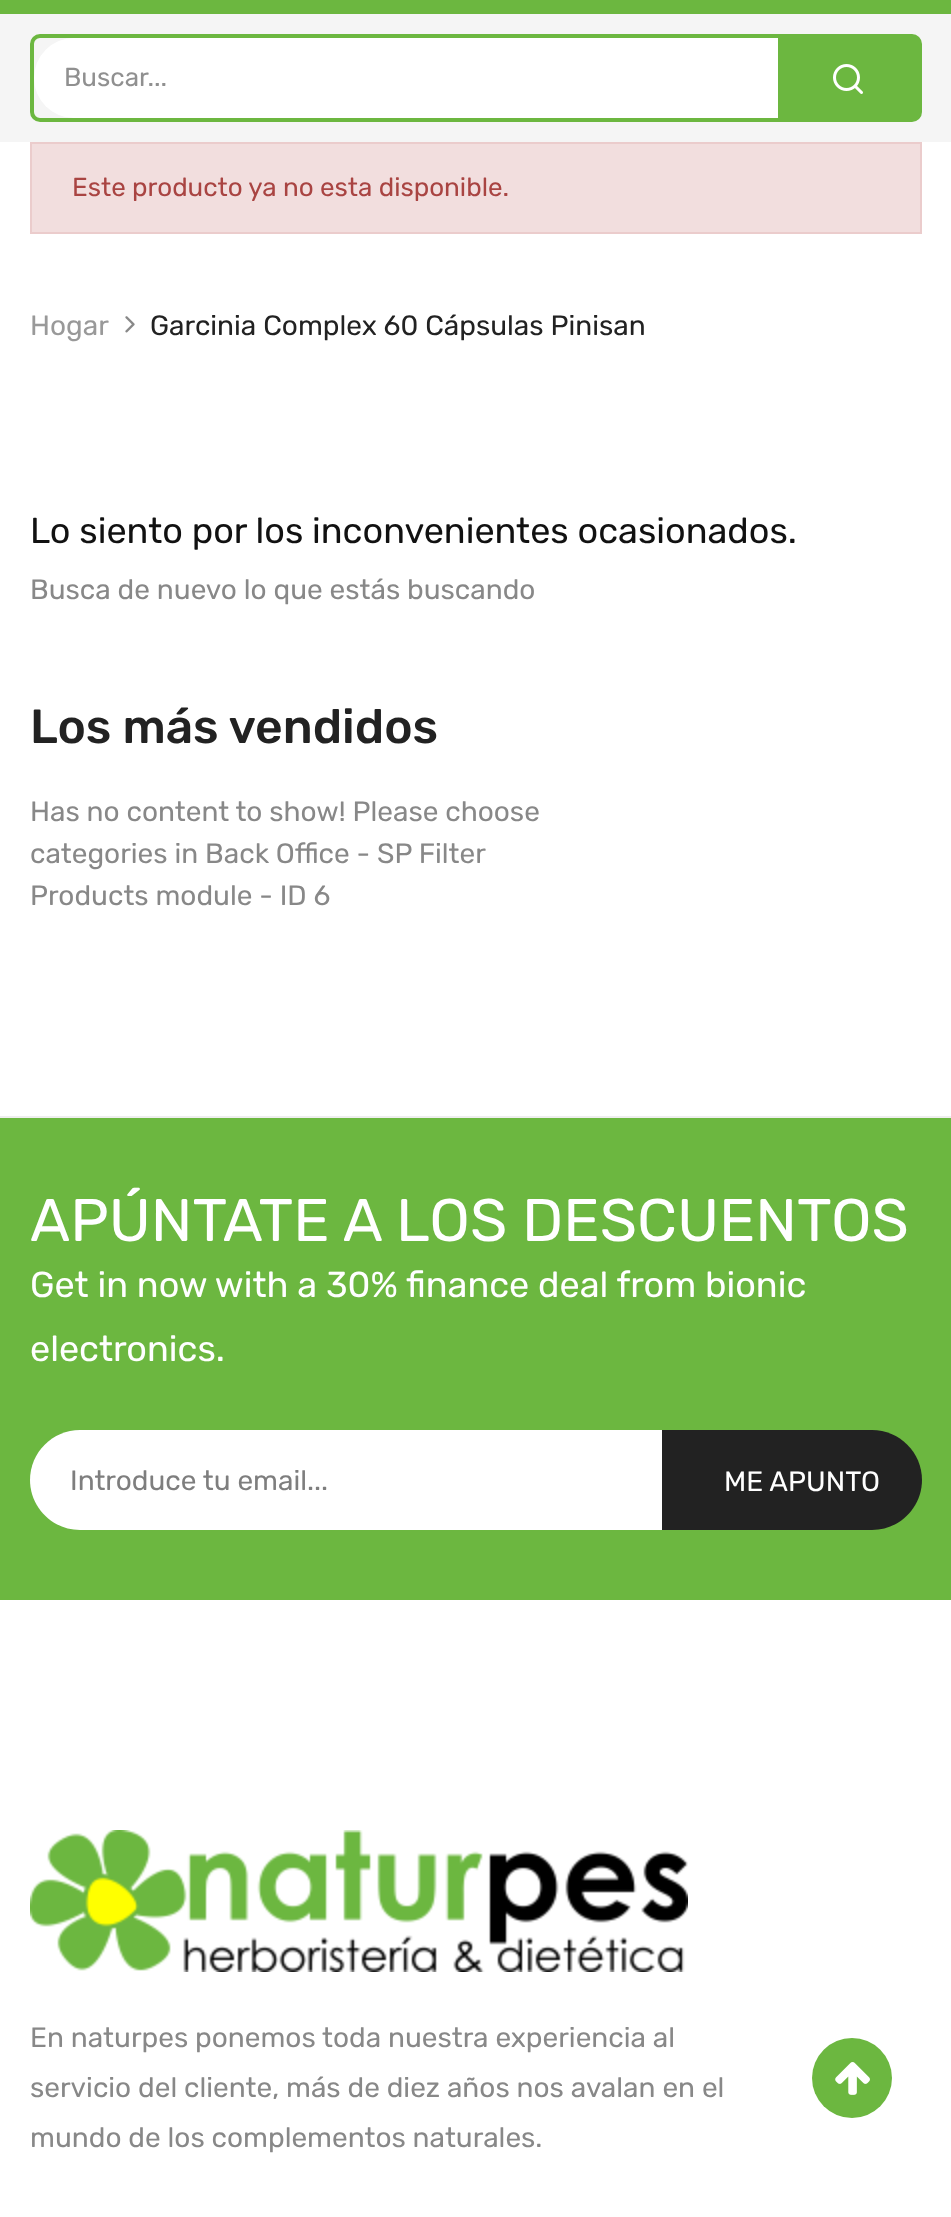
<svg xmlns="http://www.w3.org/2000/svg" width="951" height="2217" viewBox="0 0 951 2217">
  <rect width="100%" height="100%" fill="rgb(255,255,255)"/>
  <rect x="0" y="0" width="951" height="14" fill="rgb(108,183,64)"/>
  <rect x="0" y="14" width="951" height="128" fill="rgb(245,245,245)"/>
  <rect x="32" y="36" width="888" height="84" rx="8" fill="none" stroke="rgb(108,183,64)" stroke-width="4"/>
  <rect x="34" y="38" width="884" height="80" rx="40" fill="rgb(255,255,255)"/>
  <text x="64" y="86" font-family="Rubik" font-size="26" fill="rgb(144,144,144)">Buscar...</text>
  <rect x="778" y="38" width="140" height="80" fill="rgb(108,183,64)"/>
  <image x="833" y="64" width="30" height="30" href="pic1.png"/>
  <rect x="31" y="143" width="890" height="90" fill="rgb(242,222,222)" stroke="rgb(235,204,204)" stroke-width="2"/>
  <text x="72" y="196" font-family="Rubik" font-size="26" fill="rgb(169,68,66)">Este producto ya no esta disponible.</text>
  <text x="30" y="335" font-family="Rubik" font-size="28" fill="rgb(153,153,153)">Hogar</text>
  <image x="125" y="316" width="10" height="17" href="pic2.png"/>
  <text x="150" y="335" font-family="Rubik" font-size="28" fill="rgb(34,34,34)">Garcinia Complex 60 Cápsulas Pinisan</text>
  <text x="30" y="543" font-family="Rubik" font-size="36" fill="rgb(17,17,17)">Lo siento por los inconvenientes ocasionados.</text>
  <text x="30" y="599" font-family="Rubik" font-size="28" fill="rgb(136,136,136)">Busca de nuevo lo que estás buscando</text>
  <text x="30" y="743" font-family="Rubik" font-size="48" font-weight="500" fill="rgb(34,34,34)">Los más vendidos</text>
  <g font-family="Rubik" font-size="28" fill="rgb(136,136,136)">
    <text>
      <tspan x="30" y="821">Has no content to show! Please choose</tspan>
      <tspan x="30" y="863">categories in Back Office - SP Filter</tspan>
      <tspan x="30" y="905">Products module - ID 6</tspan>
    </text>
  </g>
  <rect x="0" y="1116" width="951" height="2" fill="rgb(238,238,238)"/>
  <rect x="0" y="1118" width="951" height="482" fill="rgb(108,183,64)"/>
  <text x="30" y="1241" font-family="Rubik" font-size="60" fill="rgb(255,255,255)">APÚNTATE A LOS DESCUENTOS</text>
  <g font-family="Rubik" font-size="36" fill="rgb(255,255,255)">
    <text>
      <tspan x="30" y="1297">Get in now with a 30% finance deal from bionic</tspan>
      <tspan x="30" y="1361">electronics.</tspan>
    </text>
  </g>
  <path d="M80 1430H662V1530H80C52.5 1530 30 1507.5 30 1480C30 1452.5 52.5 1430 80 1430Z" fill="rgb(255,255,255)"/>
  <text x="70" y="1490" font-family="Rubik" font-size="28" fill="rgb(126,126,126)">Introduce tu email...</text>
  <path d="M662 1430H872C899.5 1430 922 1452.5 922 1480C922 1507.5 899.5 1530 872 1530H662Z" fill="rgb(34,34,34)"/>
  <text x="724" y="1491" font-family="Rubik" font-size="28" fill="rgb(255,255,255)">ME APUNTO</text>
  <image x="30" y="1830" width="658" height="142" href="pic3.png"/>
  <g font-family="Rubik" font-size="28" fill="rgb(136,136,136)">
    <text>
      <tspan x="30" y="2047">En naturpes ponemos toda nuestra experiencia al</tspan>
      <tspan x="30" y="2097">servicio del cliente, más de diez años nos avalan en el</tspan>
      <tspan x="30" y="2147">mundo de los complementos naturales.</tspan>
    </text>
  </g>
  <circle cx="852" cy="2078" r="40" fill="rgb(108,183,64)"/>
  <image x="835" y="2062" width="35" height="33" href="pic4.png"/>
</svg>
